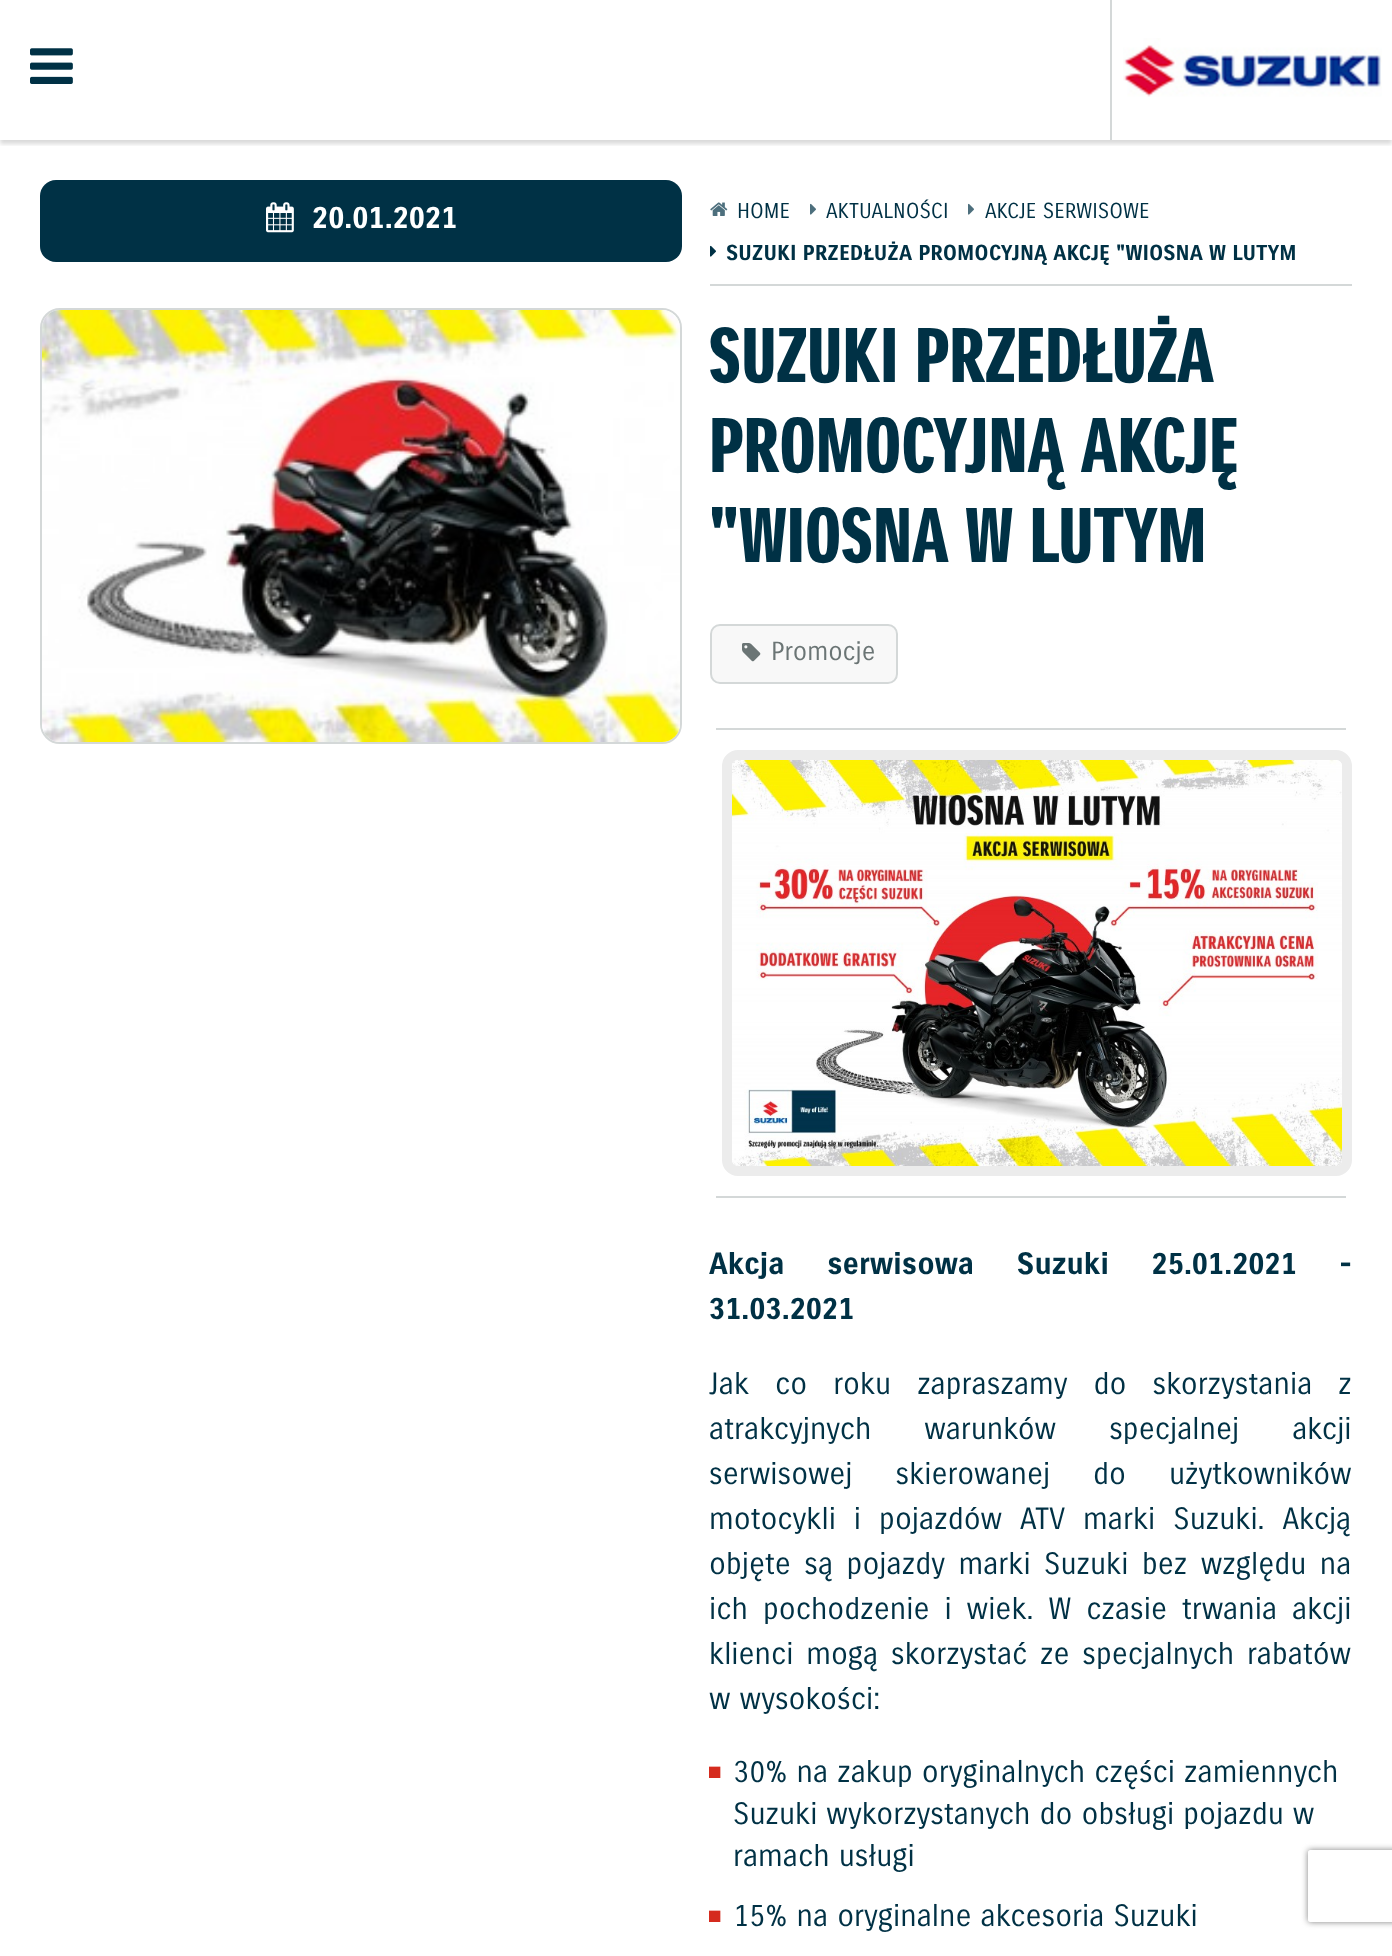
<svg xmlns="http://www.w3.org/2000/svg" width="1392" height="1956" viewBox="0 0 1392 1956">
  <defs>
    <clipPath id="clip1"><rect x="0" y="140" width="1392" height="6"/></clipPath>
    <clipPath id="clip2"><path d="M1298 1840H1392V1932H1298ZM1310 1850H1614C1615 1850 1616 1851 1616 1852V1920C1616 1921 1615 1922 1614 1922H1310C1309 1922 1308 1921 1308 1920V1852C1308 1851 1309 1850 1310 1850Z" clip-rule="evenodd"/></clipPath>
  </defs>
  <rect width="100%" height="100%" fill="rgb(255,255,255)"/>
  <g clip-path="url(#clip1)">
    <rect x="0" y="4" width="1392" height="140" fill="rgba(0,0,0,0.15)" filter="blur(2px)"/>
  </g>
  <image x="30" y="48" width="43" height="36" href="pic1.png"/>
  <rect x="1110" y="0" width="2" height="140" fill="rgb(212,216,216)"/>
  <image x="1123" y="38" width="259" height="59" href="pic2.png"/>
  <rect x="40" y="180" width="642" height="82" rx="16" fill="rgb(0,49,69)"/>
  <image x="266" y="202" width="28" height="31" href="pic3.png"/>
  <text x="312" y="228" font-family="'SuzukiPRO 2'" font-size="30" fill="rgb(255,255,255)">20.01.2021</text>
  <rect x="41" y="309" width="640" height="434" rx="19" fill="none" stroke="rgb(212,216,216)" stroke-width="2"/>
  <image x="42" y="310" width="638" height="432" href="pic4.png"/>
  <rect x="710" y="284" width="642" height="2" fill="rgb(212,216,216)"/>
  <image x="710" y="202" width="18" height="14" href="pic5.png"/>
  <text x="737" y="218" font-family="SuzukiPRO" font-size="21" fill="rgb(0,49,69)">HOME</text>
  <image x="810" y="203" width="6" height="12" href="pic6.png"/>
  <text x="826" y="218" font-family="SuzukiPRO" font-size="21" fill="rgb(0,49,69)">AKTUALNOŚCI</text>
  <image x="968" y="203" width="6" height="12" href="pic6.png"/>
  <text x="985" y="218" font-family="SuzukiPRO" font-size="21" fill="rgb(0,49,69)">AKCJE SERWISOWE</text>
  <image x="710" y="245" width="6" height="12" href="pic7.png"/>
  <text x="726" y="260" font-family="'SuzukiPRO 2'" font-size="21" fill="rgb(0,49,69)">SUZUKI PRZEDŁUŻA PROMOCYJNĄ AKCJĘ "WIOSNA W LUTYM</text>
  <g font-family="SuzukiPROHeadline" font-size="75" font-weight="bold" fill="rgb(0,49,69)">
    <text>
      <tspan x="709" y="382">SUZUKI PRZEDŁUŻA</tspan>
      <tspan x="709" y="472">PROMOCYJNĄ AKCJĘ</tspan>
      <tspan x="709" y="562">"WIOSNA W LUTYM</tspan>
    </text>
  </g>
  <rect x="711" y="625" width="186" height="58" rx="9" fill="rgb(248,248,248)" stroke="rgb(212,216,216)" stroke-width="2"/>
  <image x="742" y="643" width="19" height="19" href="pic8.png"/>
  <text x="771" y="660" font-family="SuzukiPRO" font-size="25.5" fill="rgb(107,117,117)">Promocje</text>
  <rect x="716" y="728" width="630" height="2" fill="rgb(212,216,216)"/>
  <rect x="716" y="1196" width="630" height="2" fill="rgb(212,216,216)"/>
  <rect x="727" y="755" width="620" height="416" rx="11" fill="none" stroke="rgb(236,236,236)" stroke-width="10"/>
  <image x="732" y="760" width="610" height="406" href="pic9.png"/>
  <g font-family="'SuzukiPRO 2'" font-size="30" fill="rgb(0,49,69)">
    <text>
      <tspan x="709" y="1274" word-spacing="34">Akcja serwisowa Suzuki 25.01.2021 -</tspan>
      <tspan x="709" y="1319">31.03.2021</tspan>
    </text>
  </g>
  <g font-family="SuzukiPRO" font-size="30" fill="rgb(0,49,69)">
    <text>
      <tspan x="709" y="1394" word-spacing="17">Jak co roku zapraszamy do skorzystania z</tspan>
      <tspan x="709" y="1439" word-spacing="44">atrakcyjnych warunków specjalnej akcji</tspan>
      <tspan x="709" y="1484" word-spacing="34">serwisowej skierowanej do użytkowników</tspan>
      <tspan x="709" y="1529" word-spacing="9">motocykli i pojazdów ATV marki Suzuki. Akcją</tspan>
      <tspan x="709" y="1574" word-spacing="4.5">objęte są pojazdy marki Suzuki bez względu na</tspan>
      <tspan x="709" y="1619" word-spacing="6">ich pochodzenie i wiek. W czasie trwania akcji</tspan>
      <tspan x="709" y="1664" word-spacing="3.75">klienci mogą skorzystać ze specjalnych rabatów</tspan>
      <tspan x="709" y="1709">w wysokości:</tspan>
    </text>
  </g>
  <text x="709" y="1778" font-family="SuzukiPRO" font-size="21" fill="rgb(213,43,30)">◼</text>
  <g font-family="SuzukiPRO" font-size="30" fill="rgb(0,49,69)">
    <text>
      <tspan x="733" y="1782">30% na zakup oryginalnych części zamiennych</tspan>
      <tspan x="733" y="1824">Suzuki wykorzystanych do obsługi pojazdu w</tspan>
      <tspan x="733" y="1866">ramach usługi</tspan>
    </text>
  </g>
  <text x="709" y="1922" font-family="SuzukiPRO" font-size="21" fill="rgb(213,43,30)">◼</text>
  <text x="733" y="1926" font-family="SuzukiPRO" font-size="30" fill="rgb(0,49,69)">15% na oryginalne akcesoria Suzuki</text>
  <g clip-path="url(#clip2)">
    <rect x="1308" y="1850" width="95" height="72" rx="2" fill="rgb(128,128,128)" filter="blur(3px)"/>
  </g>
</svg>
